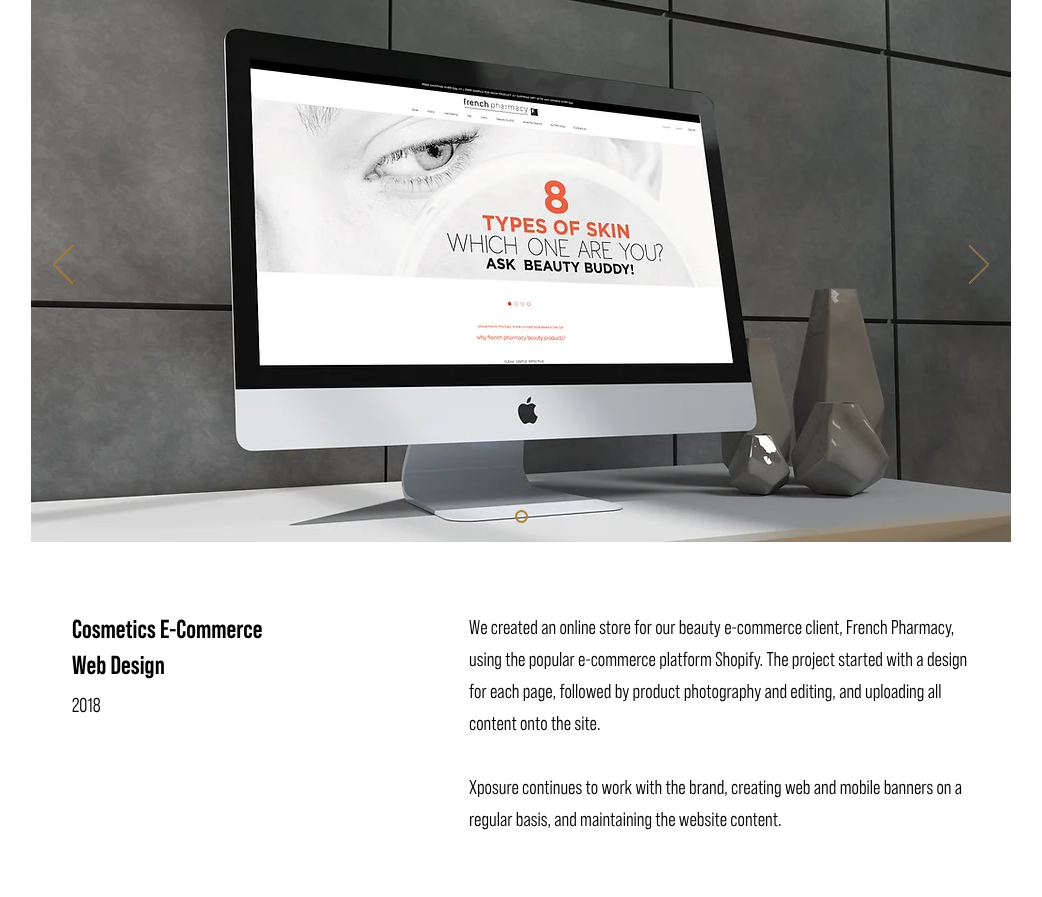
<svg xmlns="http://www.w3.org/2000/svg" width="1042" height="897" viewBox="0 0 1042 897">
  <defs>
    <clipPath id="clip1"><rect x="53" y="245" width="20" height="40"/></clipPath>
    <clipPath id="clip2"><rect x="969" y="245" width="20" height="40"/></clipPath>
  </defs>
  <rect width="100%" height="100%" fill="rgb(255,255,255)"/>
  <image x="31" y="0" width="980" height="542" href="pic1.png"/>
  <g clip-path="url(#clip1)">
    <path d="M72.5 284L53 264.5L72.5 245L73 246L54 264.5L73 283Z" fill="none" stroke="rgb(176,128,50)"/>
  </g>
  <g clip-path="url(#clip2)">
    <path d="M969.5 284L989 264.5L969.5 245L969 246L988 264.5L969 283Z" fill="none" stroke="rgb(176,128,50)"/>
  </g>
  <circle cx="521.5" cy="516.5" r="5.5" fill="none" stroke="rgb(176,128,50)" stroke-width="2"/>
  <g font-family="Bebas Neue" font-size="26" font-weight="bold" fill="rgb(0,0,0)">
    <text>
      <tspan x="72" y="638">Cosmetics E-Commerce</tspan>
      <tspan x="72" y="674">Web Design</tspan>
    </text>
  </g>
  <g font-family="Bebas Neue" font-size="20" font-weight="300" fill="rgb(0,0,0)">
    <text>
      <tspan x="469" y="634">We created an online store for our beauty e-commerce client, French Pharmacy,</tspan>
      <tspan x="469" y="666">using the popular e-commerce platform Shopify. The project started with a design</tspan>
      <tspan x="469" y="698">for each page, followed by product photography and editing, and uploading all</tspan>
      <tspan x="469" y="730">content onto the site.</tspan>
    </text>
    <text>
      <tspan x="469" y="794">Xposure continues to work with the brand, creating web and mobile banners on a</tspan>
      <tspan x="469" y="826">regular basis, and maintaining the website content.</tspan>
    </text>
    <text x="72" y="712">2018</text>
  </g>
</svg>
